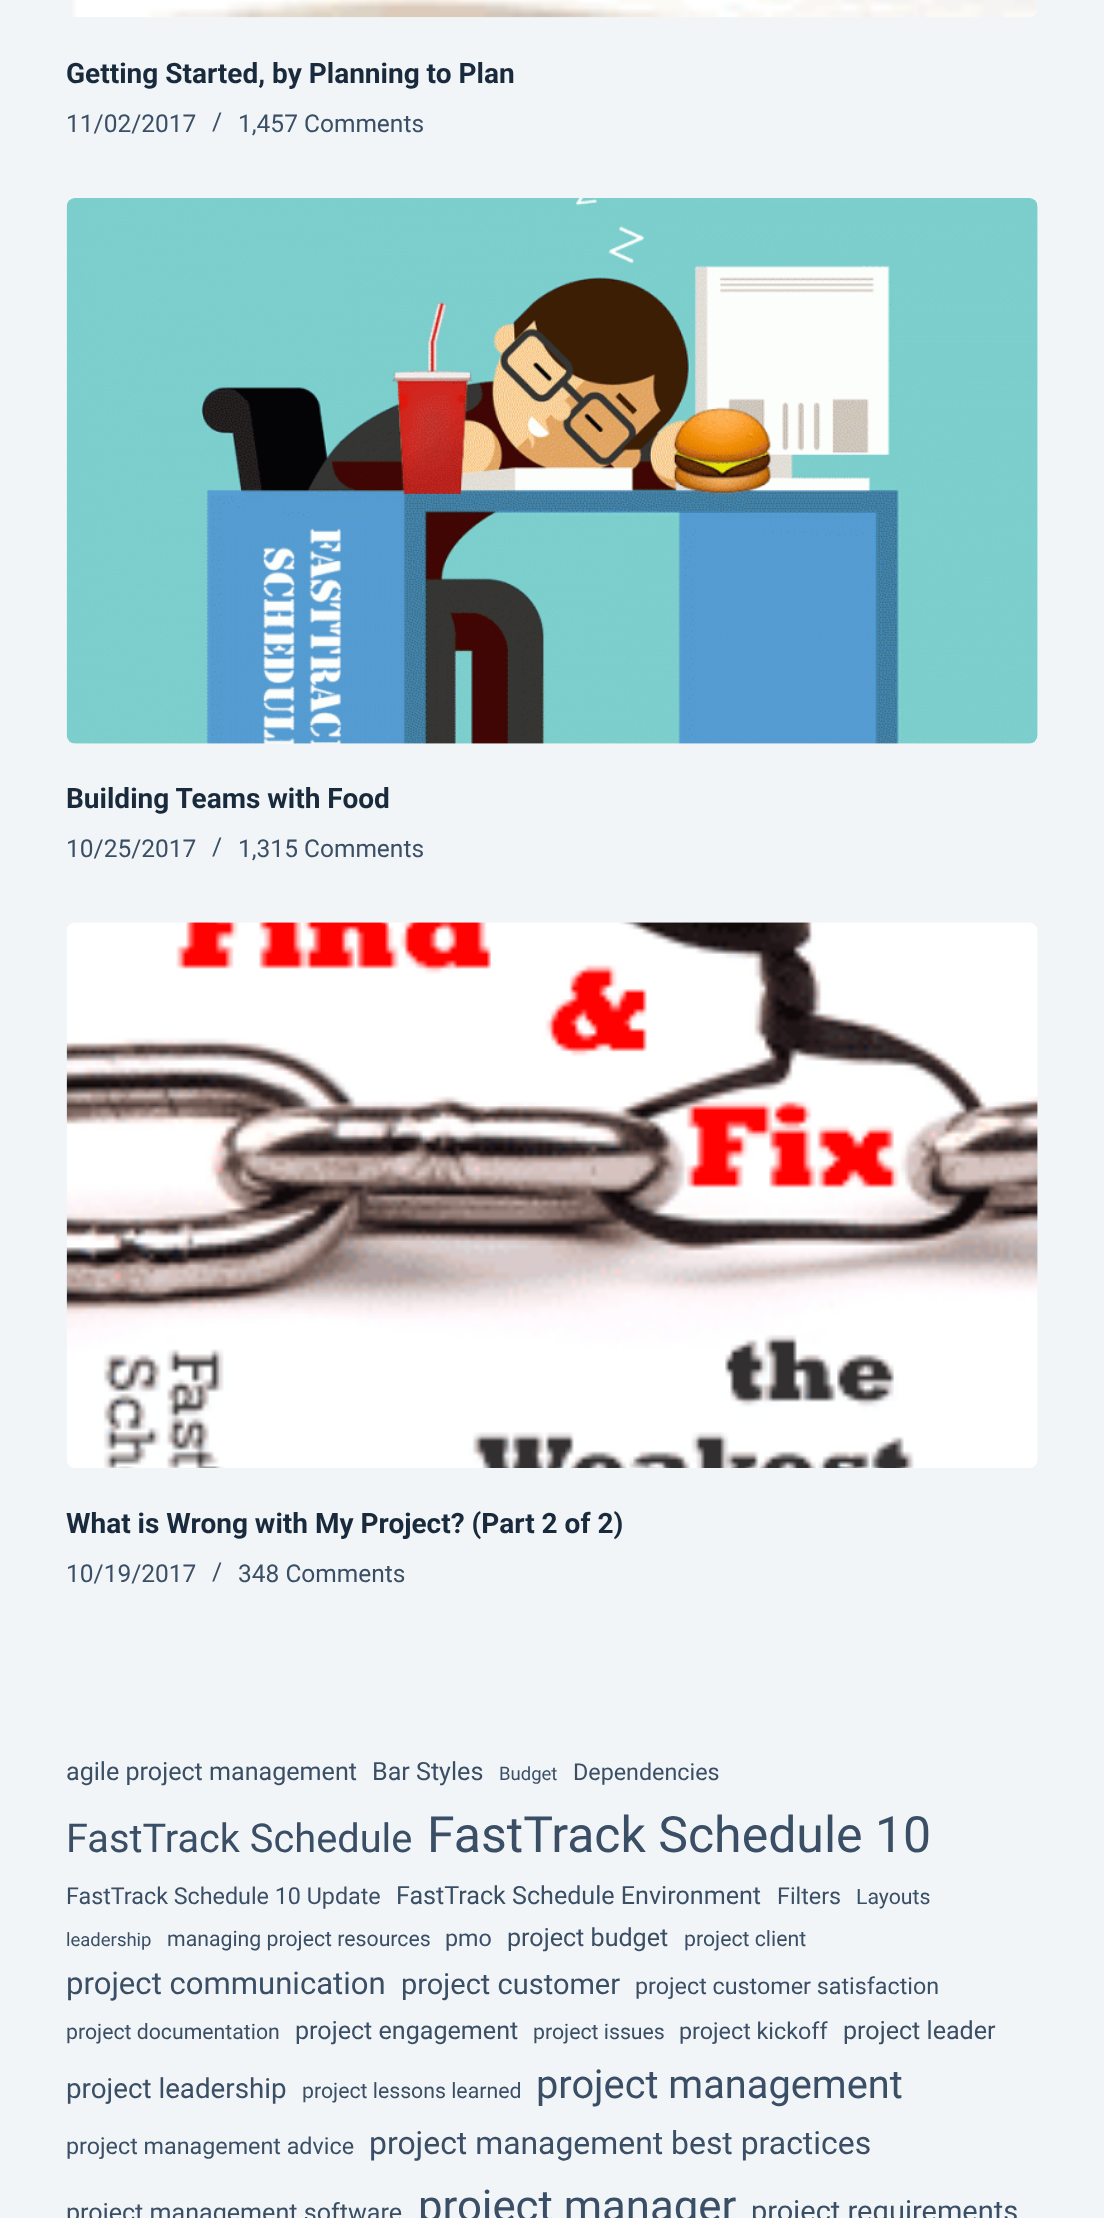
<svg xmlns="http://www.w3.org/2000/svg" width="1104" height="2218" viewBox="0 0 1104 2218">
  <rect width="100%" height="100%" fill="rgb(242,245,247)"/>
  <image x="72" y="0" width="965" height="18" href="pic1.png"/>
  <text x="66" y="83" font-family="Roboto" font-size="28" font-weight="bold" fill="rgb(25,42,61)">Getting Started, by Planning to Plan</text>
  <g font-family="Roboto" font-size="24.5" fill="rgb(58,79,102)">
    <text x="66" y="132">11/02/2017</text>
    <text x="212" y="130">/</text>
    <text x="238" y="132">1,457 Comments</text>
  </g>
  <image x="66" y="198" width="972" height="546" href="pic2.png"/>
  <text x="66" y="808" font-family="Roboto" font-size="28" font-weight="bold" fill="rgb(25,42,61)">Building Teams with Food</text>
  <g font-family="Roboto" font-size="24.5" fill="rgb(58,79,102)">
    <text x="66" y="857">10/25/2017</text>
    <text x="212" y="855">/</text>
    <text x="238" y="857">1,315 Comments</text>
  </g>
  <image x="66" y="922" width="972" height="546" href="pic3.png"/>
  <text x="66" y="1533" font-family="Roboto" font-size="28" font-weight="bold" fill="rgb(25,42,61)">What is Wrong with My Project? (Part 2 of 2)</text>
  <g font-family="Roboto" font-size="24.5" fill="rgb(58,79,102)">
    <text x="66" y="1582">10/19/2017</text>
    <text x="212" y="1580">/</text>
    <text x="238" y="1582">348 Comments</text>
  </g>
  <g font-family="Roboto" font-size="25.1" fill="rgb(58,79,102)">
    <text x="66" y="1780">agile project management</text>
    <text x="372" y="1780">Bar Styles</text>
  </g>
  <text x="499" y="1780" font-family="Roboto" font-size="18.5" fill="rgb(58,79,102)">Budget</text>
  <text x="573" y="1780" font-family="Roboto" font-size="23.3" fill="rgb(58,79,102)">Dependencies</text>
  <text x="66" y="1852" font-family="Roboto" font-size="39.75" fill="rgb(58,79,102)">FastTrack Schedule</text>
  <text x="427" y="1852" font-family="Roboto" font-size="50" fill="rgb(58,79,102)">FastTrack Schedule 10</text>
  <text x="66" y="1904" font-family="Roboto" font-size="23.3" fill="rgb(58,79,102)">FastTrack Schedule 10 Update</text>
  <text x="396" y="1904" font-family="Roboto" font-size="25.1" fill="rgb(58,79,102)">FastTrack Schedule Environment</text>
  <text x="777" y="1904" font-family="Roboto" font-size="23.3" fill="rgb(58,79,102)">Filters</text>
  <text x="856" y="1904" font-family="Roboto" font-size="21.25" fill="rgb(58,79,102)">Layouts</text>
  <text x="66" y="1946" font-family="Roboto" font-size="18.5" fill="rgb(58,79,102)">leadership</text>
  <text x="167" y="1946" font-family="Roboto" font-size="21.25" fill="rgb(58,79,102)">managing project resources</text>
  <text x="445" y="1946" font-family="Roboto" font-size="23.3" fill="rgb(58,79,102)">pmo</text>
  <text x="507" y="1946" font-family="Roboto" font-size="25.1" fill="rgb(58,79,102)">project budget</text>
  <text x="684" y="1946" font-family="Roboto" font-size="21.25" fill="rgb(58,79,102)">project client</text>
  <text x="66" y="1994" font-family="Roboto" font-size="31.1" fill="rgb(58,79,102)">project communication</text>
  <text x="401" y="1994" font-family="Roboto" font-size="29" fill="rgb(58,79,102)">project customer</text>
  <text x="635" y="1994" font-family="Roboto" font-size="23.3" fill="rgb(58,79,102)">project customer satisfaction</text>
  <text x="66" y="2039" font-family="Roboto" font-size="21.25" fill="rgb(58,79,102)">project documentation</text>
  <text x="295" y="2039" font-family="Roboto" font-size="25.1" fill="rgb(58,79,102)">project engagement</text>
  <text x="533" y="2039" font-family="Roboto" font-size="21.25" fill="rgb(58,79,102)">project issues</text>
  <text x="679" y="2039" font-family="Roboto" font-size="23.3" fill="rgb(58,79,102)">project kickoff</text>
  <text x="843" y="2039" font-family="Roboto" font-size="25.1" fill="rgb(58,79,102)">project leader</text>
  <text x="66" y="2098" font-family="Roboto" font-size="27.75" fill="rgb(58,79,102)">project leadership</text>
  <text x="302" y="2098" font-family="Roboto" font-size="21.25" fill="rgb(58,79,102)">project lessons learned</text>
  <text x="536" y="2098" font-family="Roboto" font-size="39.75" fill="rgb(58,79,102)">project management</text>
  <text x="66" y="2154" font-family="Roboto" font-size="23.3" fill="rgb(58,79,102)">project management advice</text>
  <text x="369" y="2154" font-family="Roboto" font-size="31.9" fill="rgb(58,79,102)">project management best practices</text>
  <text x="66" y="2221" font-family="Roboto" font-size="25.1" fill="rgb(58,79,102)">project management software</text>
  <text x="418" y="2221" font-family="Roboto" font-size="43.75" fill="rgb(58,79,102)">project manager</text>
  <text x="751" y="2221" font-family="Roboto" font-size="29" fill="rgb(58,79,102)">project requirements</text>
</svg>
